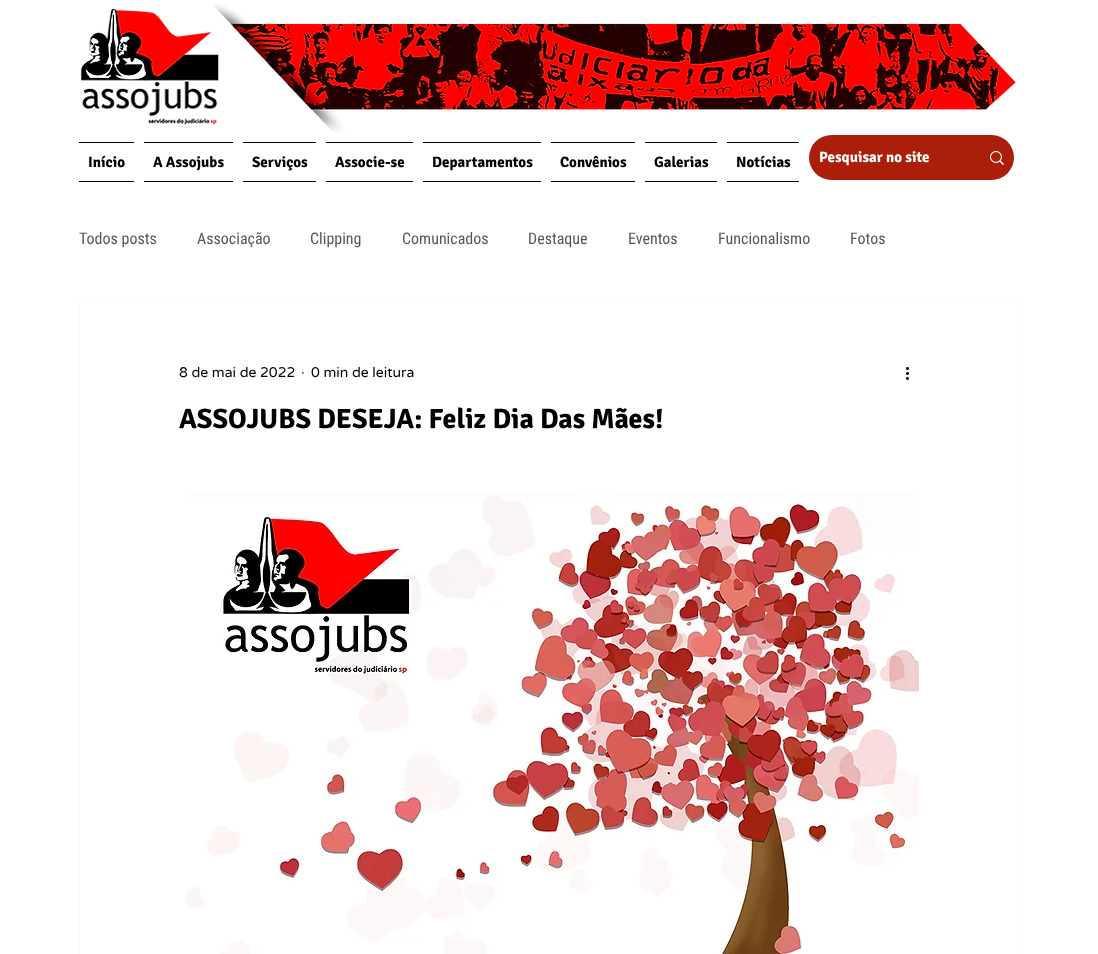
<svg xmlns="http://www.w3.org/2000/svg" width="1098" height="954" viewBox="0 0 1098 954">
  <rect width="100%" height="100%" fill="rgb(255,255,255)"/>
  <image x="80" y="3" width="936" height="130" href="pic1.png"/>
  <rect x="79" y="142" width="55" height="1" fill="rgb(0,0,0)"/>
  <rect x="79" y="181" width="55" height="1" fill="rgb(0,0,0)"/>
  <text x="88" y="167" font-family="Signika" font-size="15" font-weight="bold" fill="rgb(0,0,0)">Início</text>
  <rect x="144" y="142" width="89" height="1" fill="rgb(0,0,0)"/>
  <rect x="144" y="181" width="89" height="1" fill="rgb(0,0,0)"/>
  <text x="153" y="167" font-family="Signika" font-size="15" font-weight="bold" fill="rgb(0,0,0)">A Assojubs</text>
  <rect x="243" y="142" width="73" height="1" fill="rgb(0,0,0)"/>
  <rect x="243" y="181" width="73" height="1" fill="rgb(0,0,0)"/>
  <text x="252" y="167" font-family="Signika" font-size="15" font-weight="bold" fill="rgb(0,0,0)">Serviços</text>
  <rect x="326" y="142" width="87" height="1" fill="rgb(0,0,0)"/>
  <rect x="326" y="181" width="87" height="1" fill="rgb(0,0,0)"/>
  <text x="335" y="167" font-family="Signika" font-size="15" font-weight="bold" fill="rgb(0,0,0)">Associe-se</text>
  <rect x="423" y="142" width="118" height="1" fill="rgb(0,0,0)"/>
  <rect x="423" y="181" width="118" height="1" fill="rgb(0,0,0)"/>
  <text x="432" y="167" font-family="Signika" font-size="15" font-weight="bold" fill="rgb(0,0,0)">Departamentos</text>
  <rect x="551" y="142" width="84" height="1" fill="rgb(0,0,0)"/>
  <rect x="551" y="181" width="84" height="1" fill="rgb(0,0,0)"/>
  <text x="560" y="167" font-family="Signika" font-size="15" font-weight="bold" fill="rgb(0,0,0)">Convênios</text>
  <rect x="645" y="142" width="72" height="1" fill="rgb(0,0,0)"/>
  <rect x="645" y="181" width="72" height="1" fill="rgb(0,0,0)"/>
  <text x="654" y="167" font-family="Signika" font-size="15" font-weight="bold" fill="rgb(0,0,0)">Galerias</text>
  <rect x="727" y="142" width="72" height="1" fill="rgb(0,0,0)"/>
  <rect x="727" y="181" width="72" height="1" fill="rgb(0,0,0)"/>
  <text x="736" y="167" font-family="Signika" font-size="15" font-weight="bold" fill="rgb(0,0,0)">Notícias</text>
  <rect x="809" y="135" width="205" height="45" rx="22.5" fill="rgb(171,30,9)"/>
  <text x="819" y="162" font-family="Signika" font-size="15" font-weight="bold" fill="rgb(255,255,255)">Pesquisar no site</text>
  <image x="990" y="151" width="14" height="14" href="pic2.png"/>
  <g font-family="Roboto Condensed" font-size="16" fill="rgb(88,85,81)">
    <text x="79" y="244">Todos posts</text>
    <text x="197" y="244">Associação</text>
    <text x="310" y="244">Clipping</text>
    <text x="402" y="244">Comunicados</text>
    <text x="528" y="244">Destaque</text>
    <text x="628" y="244">Eventos</text>
    <text x="718" y="244">Funcionalismo</text>
    <text x="850" y="244">Fotos</text>
  </g>
  <rect x="79.5" y="299.5" width="939" height="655" fill="none" stroke="rgb(250,250,250)"/>
  <g font-family="Varela Round" font-size="14" fill="rgb(0,0,0)">
    <text x="179" y="377">8 de mai de 2022</text>
    <text x="301" y="377">·</text>
    <text x="311" y="377">0 min de leitura</text>
  </g>
  <image x="906" y="367" width="3" height="13" href="pic3.png"/>
  <text x="179" y="428" font-family="Signika" font-size="28" font-weight="bold" fill="rgb(0,0,0)">ASSOJUBS DESEJA: Feliz Dia Das Mães!</text>
  <image x="185" y="493" width="734" height="461" href="pic4.png"/>
</svg>
